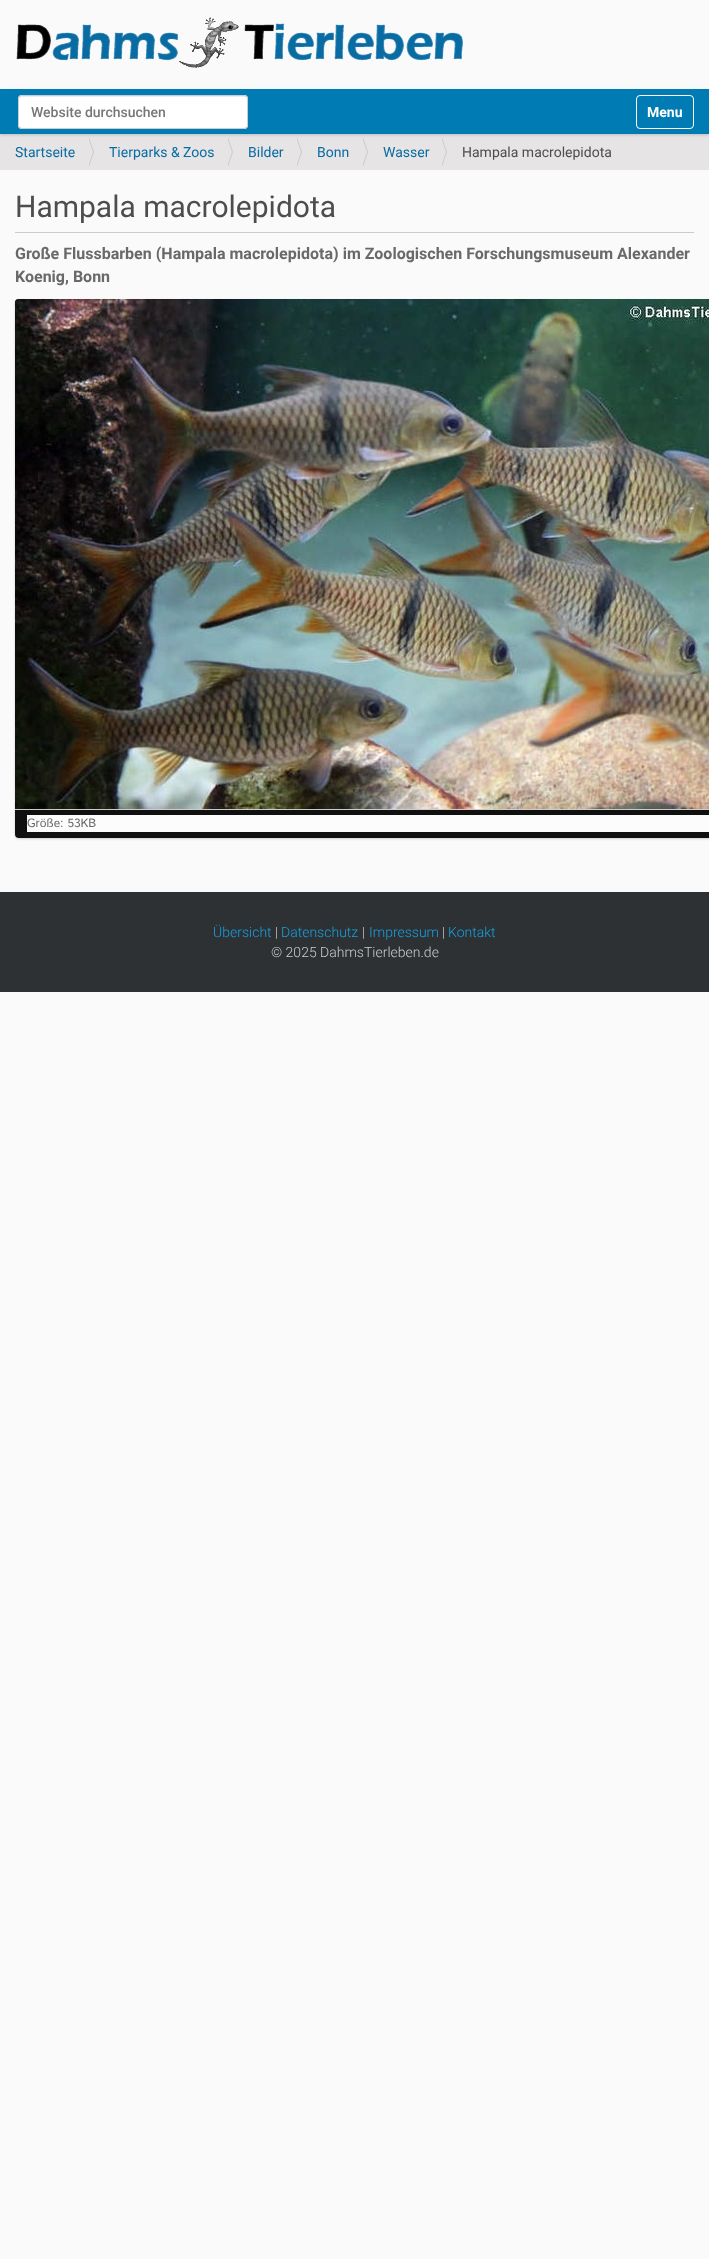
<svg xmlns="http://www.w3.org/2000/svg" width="709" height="2259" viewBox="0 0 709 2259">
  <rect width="100%" height="100%" fill="rgb(250,250,250)"/>
  <image x="16" y="17" width="447" height="51" href="pic1.png"/>
  <rect x="0" y="134" width="709" height="36" fill="rgb(230,228,228)"/>
  <rect x="0" y="90" width="709" height="45" fill="rgba(0,0,0,0.17)" filter="blur(1.5px)"/>
  <rect x="0" y="89" width="709" height="45" fill="rgb(0,123,179)"/>
  <rect x="18" y="95" width="230" height="34" rx="4" fill="rgb(255,255,255)"/>
  <path d="M22 97H244C246 97 247 98 247 100V99C247 97 246 96 244 96H22C20 96 19 97 19 99V100C19 98 20 97 22 97Z" fill="rgb(236,236,236)"/>
  <rect x="18.5" y="95.5" width="229" height="33" rx="3.5" fill="none" stroke="rgb(204,204,204)"/>
  <text x="31" y="117" font-family="Roboto" font-size="14" font-weight="500" fill="rgb(119,119,119)">Website durchsuchen</text>
  <rect x="636.5" y="95.5" width="57" height="33" rx="3.5" fill="none" stroke="rgb(255,255,255)"/>
  <text x="647" y="117" font-family="Roboto" font-size="14" font-weight="bold" fill="rgb(255,255,255)">Menu</text>
  <text x="15" y="157" font-family="Roboto" font-size="14" fill="rgb(8,108,163)">Startseite</text>
  <path d="M89 167V137L94 152Z" fill="rgb(204,204,204)"/>
  <path d="M88 167V137L93 152Z" fill="rgb(230,228,228)"/>
  <text x="109" y="157" font-family="Roboto" font-size="14" fill="rgb(8,108,163)">Tierparks &amp; Zoos</text>
  <path d="M228 167V137L233 152Z" fill="rgb(204,204,204)"/>
  <path d="M227 167V137L232 152Z" fill="rgb(230,228,228)"/>
  <text x="248" y="157" font-family="Roboto" font-size="14" fill="rgb(8,108,163)">Bilder</text>
  <path d="M297 167V137L302 152Z" fill="rgb(204,204,204)"/>
  <path d="M296 167V137L301 152Z" fill="rgb(230,228,228)"/>
  <text x="317" y="157" font-family="Roboto" font-size="14" fill="rgb(8,108,163)">Bonn</text>
  <path d="M363 167V137L368 152Z" fill="rgb(204,204,204)"/>
  <path d="M362 167V137L367 152Z" fill="rgb(230,228,228)"/>
  <text x="383" y="157" font-family="Roboto" font-size="14" fill="rgb(8,108,163)">Wasser</text>
  <path d="M442 167V137L447 152Z" fill="rgb(204,204,204)"/>
  <path d="M441 167V137L446 152Z" fill="rgb(230,228,228)"/>
  <text x="462" y="157" font-family="Roboto" font-size="14" fill="rgb(77,77,77)">Hampala macrolepidota</text>
  <rect x="15" y="232" width="679" height="1" fill="rgb(204,204,204)"/>
  <text x="15" y="217" font-family="Roboto" font-size="30" fill="rgb(77,77,77)">Hampala macrolepidota</text>
  <g font-family="Roboto" font-size="16" font-weight="bold" fill="rgb(105,105,105)">
    <text>
      <tspan x="15" y="259">Große Flussbarben (Hampala macrolepidota) im Zoologischen Forschungsmuseum Alexander</tspan>
      <tspan x="15" y="282">Koenig, Bonn</tspan>
    </text>
  </g>
  <rect x="15" y="300" width="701" height="539" rx="4" fill="rgba(0,0,0,0.17)" filter="blur(1px)"/>
  <rect x="15" y="299" width="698" height="539" rx="4" fill="rgb(16,16,16)"/>
  <rect x="15" y="809" width="694" height="1" fill="rgb(204,204,204)"/>
  <image x="15" y="299" width="694" height="510" href="pic2.png"/>
  <rect x="27" y="815" width="682" height="17" fill="rgb(252,252,253)"/>
  <text x="27" y="827" font-family="Istok Web" font-size="12" fill="rgb(105,105,105)">Größe: 53KB</text>
  <rect x="0" y="892" width="709" height="100" fill="rgb(46,49,51)"/>
  <text x="213" y="937" font-family="Roboto" font-size="14" font-weight="300" fill="rgb(22,161,227)">Übersicht</text>
  <text x="275" y="937" font-family="Roboto" font-size="14" font-weight="300" fill="rgb(204,204,204)">|</text>
  <text x="281" y="937" font-family="Roboto" font-size="14" font-weight="300" fill="rgb(22,161,227)">Datenschutz</text>
  <text x="362" y="937" font-family="Roboto" font-size="14" font-weight="300" fill="rgb(204,204,204)">|</text>
  <text x="369" y="937" font-family="Roboto" font-size="14" font-weight="300" fill="rgb(22,161,227)">Impressum</text>
  <text x="442" y="937" font-family="Roboto" font-size="14" font-weight="300" fill="rgb(204,204,204)">|</text>
  <text x="448" y="937" font-family="Roboto" font-size="14" font-weight="300" fill="rgb(22,161,227)">Kontakt</text>
  <text x="271" y="957" font-family="Roboto" font-size="14" font-weight="300" fill="rgb(204,204,204)">© 2025 DahmsTierleben.de</text>
</svg>
